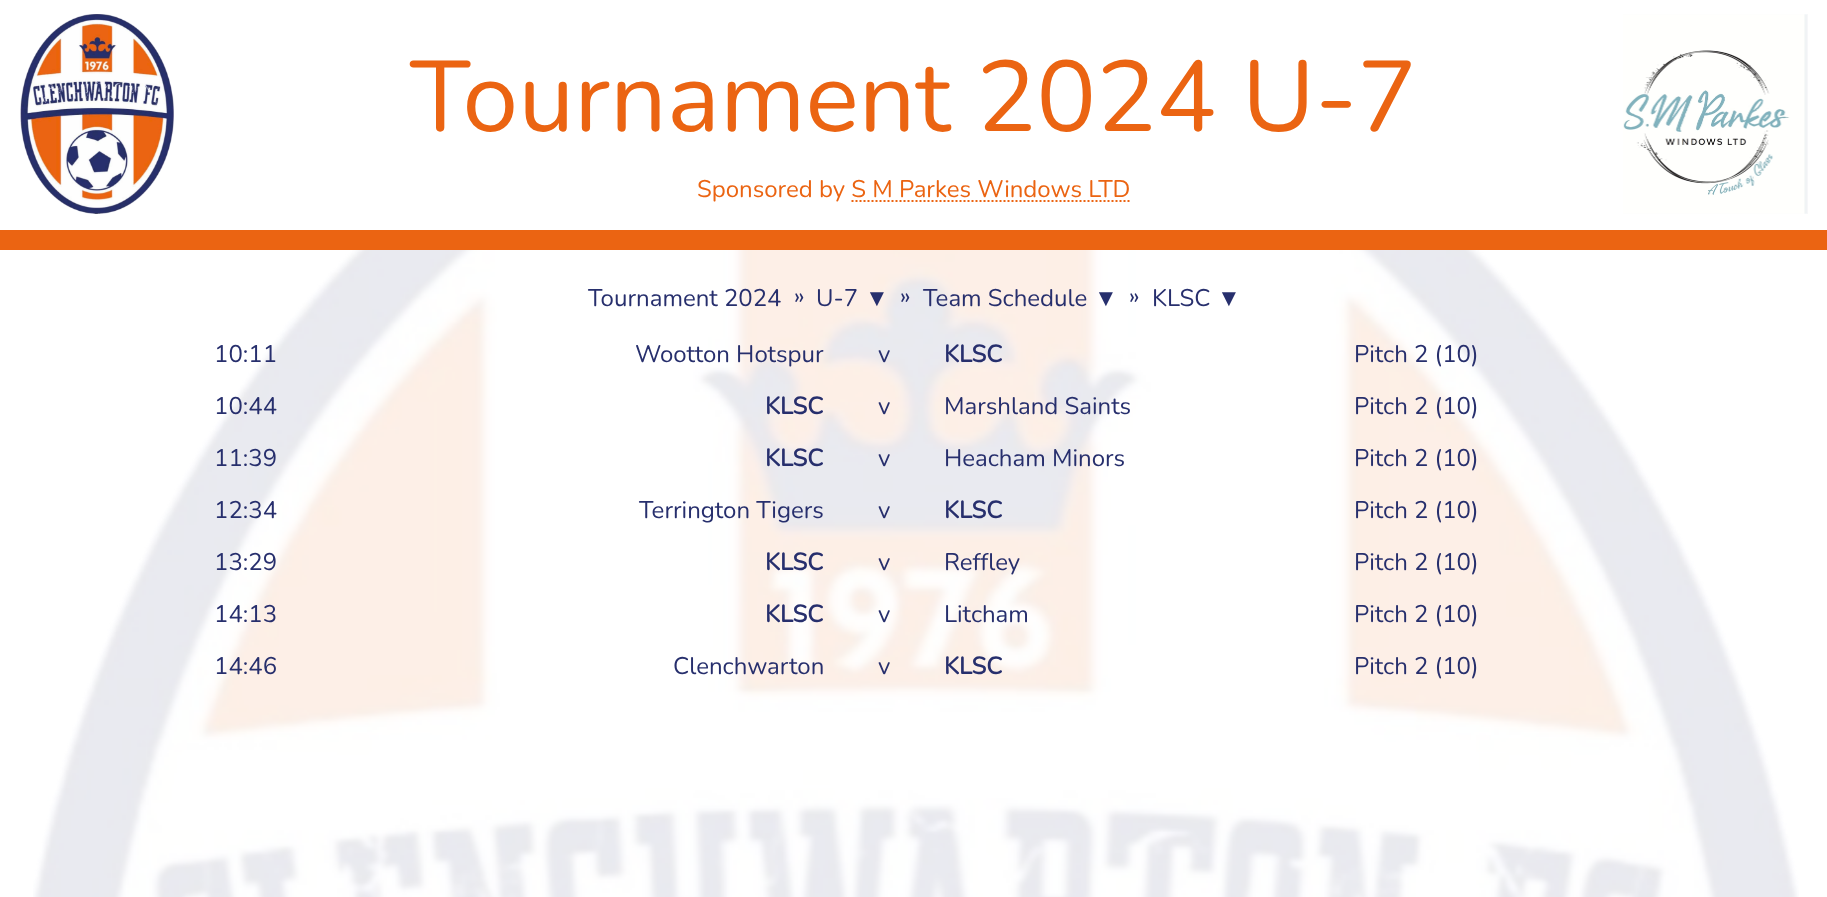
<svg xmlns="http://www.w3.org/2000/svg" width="1827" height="897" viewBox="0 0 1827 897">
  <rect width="100%" height="100%" fill="rgb(255,255,255)"/>
  <image x="33" y="250" width="1766" height="647" href="pic1.png"/>
  <rect x="0" y="230" width="1827" height="20" fill="rgb(235,100,18)"/>
  <image x="20" y="14" width="154" height="200" href="pic2.png"/>
  <text x="410" y="131" font-family="Nunito" font-size="100" font-weight="200" fill="rgb(235,100,18)">Tournament 2024 U-7</text>
  <text x="697" y="197" font-family="Nunito" font-size="24" font-weight="200" fill="rgb(235,100,18)">Sponsored by S M Parkes Windows LTD</text>
  <path d="M851.5 201H1130.5" fill="none" stroke="rgb(235,100,18)" stroke-width="2" stroke-dasharray="2 2"/>
  <image x="1623" y="14" width="185" height="200" href="pic3.png"/>
  <g font-family="Nunito" font-size="24" font-weight="200" fill="rgb(39,47,109)">
    <text x="588" y="306">Tournament 2024</text>
    <text x="794" y="304">»</text>
    <text x="816" y="306">U-7</text>
  </g>
  <text x="865" y="306" font-family="Liberation Sans" font-size="24" fill="rgb(39,47,109)">▼</text>
  <g font-family="Nunito" font-size="24" font-weight="200" fill="rgb(39,47,109)">
    <text x="900" y="304">»</text>
    <text x="923" y="306">Team Schedule</text>
  </g>
  <text x="1094" y="306" font-family="Liberation Sans" font-size="24" fill="rgb(39,47,109)">▼</text>
  <g font-family="Nunito" font-size="24" font-weight="200" fill="rgb(39,47,109)">
    <text x="1129" y="304">»</text>
    <text x="1152" y="306">KLSC</text>
  </g>
  <text x="1217" y="306" font-family="Liberation Sans" font-size="24" fill="rgb(39,47,109)">▼</text>
  <g font-family="Nunito" font-size="24" font-weight="200" fill="rgb(39,47,109)">
    <text x="214" y="362">10:11</text>
    <text x="635" y="362">Wootton Hotspur</text>
    <text x="878" y="362">v</text>
  </g>
  <text x="944" y="362" font-family="Nunito" font-size="24" font-weight="bold" fill="rgb(39,47,109)">KLSC</text>
  <g font-family="Nunito" font-size="24" font-weight="200" fill="rgb(39,47,109)">
    <text x="1354" y="362">Pitch 2 (10)</text>
    <text x="214" y="414">10:44</text>
  </g>
  <text x="765" y="414" font-family="Nunito" font-size="24" font-weight="bold" fill="rgb(39,47,109)">KLSC</text>
  <g font-family="Nunito" font-size="24" font-weight="200" fill="rgb(39,47,109)">
    <text x="878" y="414">v</text>
    <text x="944" y="414">Marshland Saints</text>
    <text x="1354" y="414">Pitch 2 (10)</text>
    <text x="214" y="466">11:39</text>
  </g>
  <text x="765" y="466" font-family="Nunito" font-size="24" font-weight="bold" fill="rgb(39,47,109)">KLSC</text>
  <g font-family="Nunito" font-size="24" font-weight="200" fill="rgb(39,47,109)">
    <text x="878" y="466">v</text>
    <text x="944" y="466">Heacham Minors</text>
    <text x="1354" y="466">Pitch 2 (10)</text>
    <text x="214" y="518">12:34</text>
    <text x="639" y="518">Terrington Tigers</text>
    <text x="878" y="518">v</text>
  </g>
  <text x="944" y="518" font-family="Nunito" font-size="24" font-weight="bold" fill="rgb(39,47,109)">KLSC</text>
  <g font-family="Nunito" font-size="24" font-weight="200" fill="rgb(39,47,109)">
    <text x="1354" y="518">Pitch 2 (10)</text>
    <text x="214" y="570">13:29</text>
  </g>
  <text x="765" y="570" font-family="Nunito" font-size="24" font-weight="bold" fill="rgb(39,47,109)">KLSC</text>
  <g font-family="Nunito" font-size="24" font-weight="200" fill="rgb(39,47,109)">
    <text x="878" y="570">v</text>
    <text x="944" y="570">Reffley</text>
    <text x="1354" y="570">Pitch 2 (10)</text>
    <text x="214" y="622">14:13</text>
  </g>
  <text x="765" y="622" font-family="Nunito" font-size="24" font-weight="bold" fill="rgb(39,47,109)">KLSC</text>
  <g font-family="Nunito" font-size="24" font-weight="200" fill="rgb(39,47,109)">
    <text x="878" y="622">v</text>
    <text x="944" y="622">Litcham</text>
    <text x="1354" y="622">Pitch 2 (10)</text>
    <text x="214" y="674">14:46</text>
    <text x="673" y="674">Clenchwarton</text>
    <text x="878" y="674">v</text>
  </g>
  <text x="944" y="674" font-family="Nunito" font-size="24" font-weight="bold" fill="rgb(39,47,109)">KLSC</text>
  <text x="1354" y="674" font-family="Nunito" font-size="24" font-weight="200" fill="rgb(39,47,109)">Pitch 2 (10)</text>
</svg>
